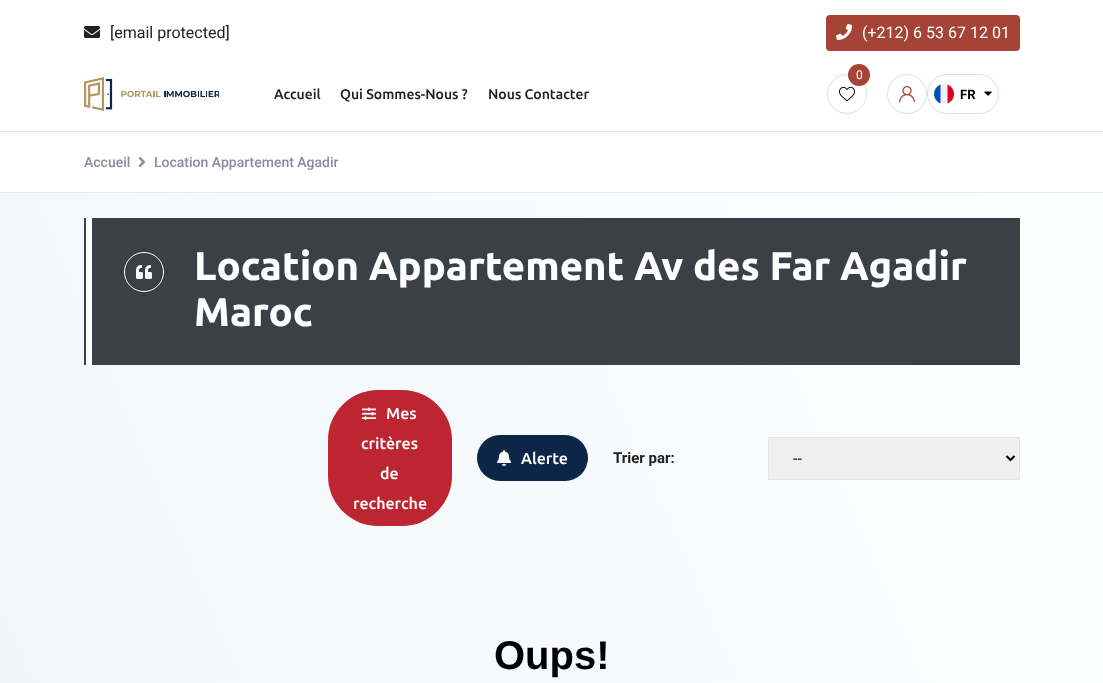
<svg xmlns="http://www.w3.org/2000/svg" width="1103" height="683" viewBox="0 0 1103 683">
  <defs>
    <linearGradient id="g1" gradientUnits="userSpaceOnUse" x1="-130" y1="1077" x2="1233" y2="498"><stop offset="0" stop-color="rgb(240,245,251)"/><stop offset="1" stop-color="rgb(253,254,254)"/></linearGradient>
  </defs>
  <rect width="100%" height="100%" fill="rgb(255,255,255)"/>
  <image x="84" y="26" width="16" height="12" href="pic1.png"/>
  <text x="110" y="38" font-family="Roboto" font-size="16" fill="rgb(33,33,33)">[email protected]</text>
  <rect x="826" y="15" width="194" height="36" rx="4" fill="rgb(166,67,55)"/>
  <image x="836" y="24" width="16" height="16" href="pic2.png"/>
  <text x="862" y="38" font-family="Roboto" font-size="16" fill="rgb(255,255,255)">(+212) 6 53 67 12 01</text>
  <image x="84" y="77" width="135" height="34" href="pic3.png"/>
  <g font-family="Ubuntu" font-size="14" font-weight="500" fill="rgb(33,33,33)">
    <text x="274" y="99">Accueil</text>
    <text x="340" y="99">Qui Sommes-Nous ?</text>
    <text x="488" y="99">Nous Contacter</text>
  </g>
  <circle cx="847" cy="94" r="19.5" fill="none" stroke="rgb(209,229,224)"/>
  <circle cx="859" cy="75" r="11" fill="rgb(166,67,55)"/>
  <text x="856" y="79" font-family="Roboto" font-size="12" fill="rgb(255,255,255)">0</text>
  <image x="839" y="86" width="16" height="15" href="pic4.png"/>
  <circle cx="907" cy="94" r="19.5" fill="none" stroke="rgb(209,229,224)"/>
  <image x="899" y="86" width="16" height="16" href="pic5.png"/>
  <rect x="927.5" y="74.5" width="71" height="39" rx="19.5" fill="none" stroke="rgb(209,229,224)"/>
  <image x="934" y="84" width="20" height="20" href="pic6.png"/>
  <text x="960" y="99" font-family="Roboto" font-size="13" font-weight="bold" fill="rgb(0,0,0)">FR</text>
  <image x="984" y="91" width="8" height="5" href="pic7.png"/>
  <rect x="0" y="131" width="1103" height="1" fill="rgb(227,230,230)"/>
  <rect x="0" y="192" width="1103" height="1" fill="rgb(222,237,233)"/>
  <text x="84" y="167" font-family="Roboto" font-size="14" font-weight="500" fill="rgb(135,140,159)">Accueil</text>
  <image x="138" y="157" width="8" height="10" href="pic8.png"/>
  <text x="154" y="167" font-family="Roboto" font-size="14" font-weight="500" fill="rgb(135,140,159)">Location Appartement Agadir</text>
  <rect x="0" y="193" width="1103" height="490" fill="url(#g1)"/>
  <rect x="92" y="218" width="928" height="147" fill="rgb(58,64,70)"/>
  <rect x="86" y="218" width="6" height="147" fill="rgb(255,255,255)"/>
  <rect x="84" y="218" width="2" height="147" fill="rgb(58,64,70)"/>
  <circle cx="144" cy="272" r="19.5" fill="none" stroke="rgb(255,255,255)"/>
  <image x="136" y="265" width="16" height="14" href="pic9.png"/>
  <g font-family="Ubuntu" font-size="40" font-weight="bold" fill="rgb(255,255,255)">
    <text>
      <tspan x="194" y="280">Location Appartement Av des Far Agadir</tspan>
      <tspan x="194" y="326">Maroc</tspan>
    </text>
  </g>
  <rect x="328" y="390" width="124" height="136" rx="50" fill="rgb(189,38,48)"/>
  <image x="362" y="407" width="14" height="13" href="pic10.png"/>
  <g font-family="Ubuntu" font-size="16" font-weight="500" fill="rgb(255,255,255)">
    <text x="386" y="419">Mes</text>
    <text x="361" y="449">critères</text>
    <text x="380" y="479">de</text>
    <text x="353" y="509">recherche</text>
  </g>
  <rect x="477" y="435" width="111" height="46" rx="23" fill="rgb(13,37,70)"/>
  <image x="497" y="450" width="14" height="16" href="pic11.png"/>
  <text x="521" y="464" font-family="Ubuntu" font-size="16" font-weight="500" fill="rgb(255,255,255)">Alerte</text>
  <text x="613" y="463" font-family="Roboto" font-size="15" font-weight="bold" fill="rgb(33,33,33)">Trier par:</text>
  <rect x="768.5" y="437.5" width="251" height="42" fill="rgb(239,239,239)" stroke="rgb(225,229,238)"/>
  <path d="M1006.5 456L1010.5 460L1014.5 456" fill="none" stroke="rgb(0,0,0)" stroke-width="2"/>
  <text x="793" y="464" font-family="Roboto" font-size="16" fill="rgb(0,0,0)">--</text>
  <text x="494" y="669" font-family="Liberation Sans" font-size="40" font-weight="bold" fill="rgb(0,0,0)">Oups!</text>
</svg>
